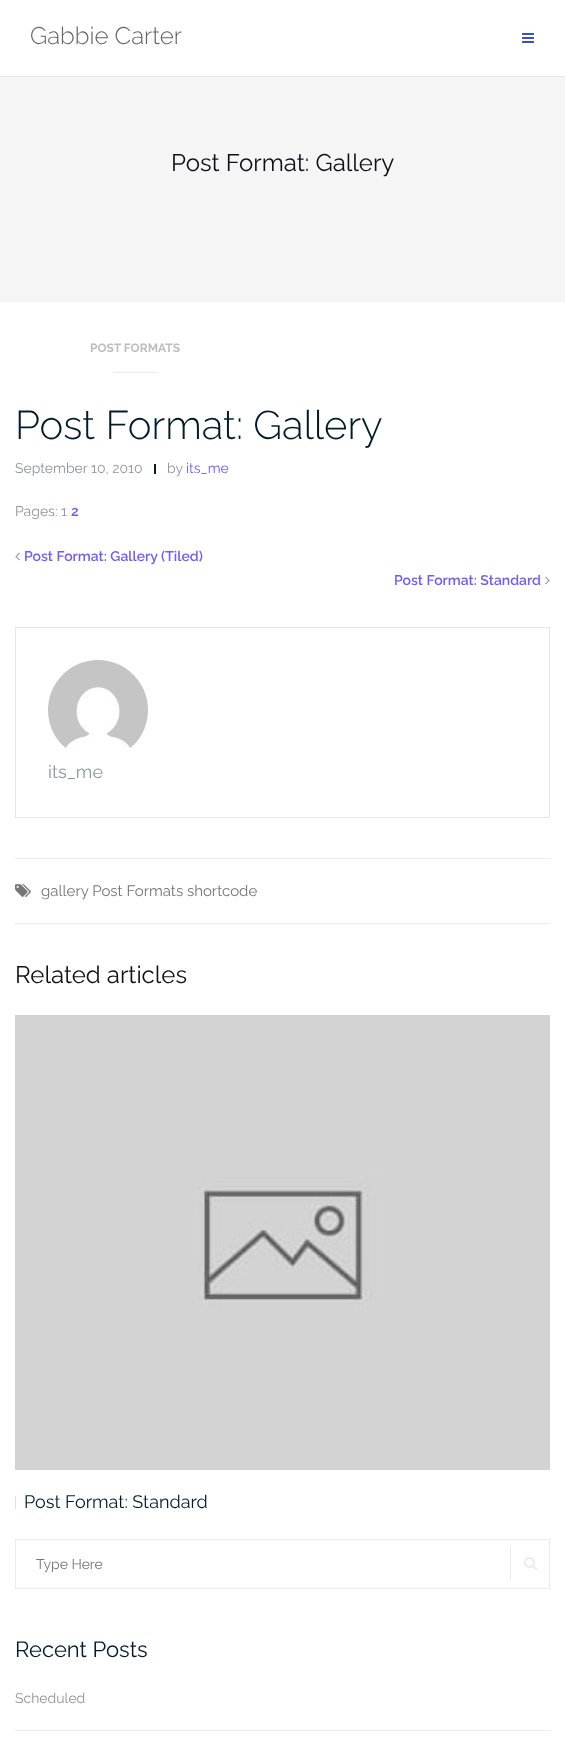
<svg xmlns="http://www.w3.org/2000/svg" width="565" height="1741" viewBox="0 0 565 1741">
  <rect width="100%" height="100%" fill="rgb(255,255,255)"/>
  <rect x="0" y="76" width="565" height="1" fill="rgb(230,230,230)"/>
  <text x="30" y="44" font-family="Raleway" font-size="24" font-weight="300" fill="rgb(102,102,102)">Gabbie Carter</text>
  <image x="522" y="33" width="12" height="10" href="pic1.png"/>
  <rect x="0" y="77" width="565" height="225" fill="rgb(245,245,245)"/>
  <text x="171" y="171" font-family="Raleway" font-size="24" fill="rgb(14,16,21)">Post Format: Gallery</text>
  <text x="90" y="352" font-family="Raleway" font-size="12" font-weight="bold" fill="rgb(190,190,190)">POST FORMATS</text>
  <rect x="113" y="372" width="45" height="1" fill="rgb(235,235,235)"/>
  <text x="15" y="439" font-family="Raleway" font-size="40" font-weight="300" fill="rgb(0,28,40)">Post Format: Gallery</text>
  <text x="15" y="473" font-family="Raleway" font-size="14" fill="rgb(140,151,158)">September 10, 2010</text>
  <rect x="154" y="464" width="2" height="10" fill="rgb(0,28,40)"/>
  <text x="167" y="473" font-family="Raleway" font-size="14" fill="rgb(140,151,158)">by</text>
  <text x="186" y="473" font-family="Raleway" font-size="14" fill="rgb(116,92,249)">its_me</text>
  <text x="15" y="516" font-family="Raleway" font-size="14" fill="rgb(140,151,158)">Pages: 1</text>
  <text x="71" y="516" font-family="Raleway" font-size="14" font-weight="600" fill="rgb(116,92,249)">2</text>
  <image x="15" y="552" width="5" height="9" href="pic2.png"/>
  <g font-family="Raleway" font-size="14" font-weight="600" fill="rgb(116,92,249)">
    <text x="24" y="561">Post Format: Gallery (Tiled)</text>
    <text x="394" y="585">Post Format: Standard</text>
  </g>
  <image x="545" y="576" width="5" height="9" href="pic3.png"/>
  <rect x="15.5" y="627.5" width="534" height="190" fill="none" stroke="rgb(230,230,230)"/>
  <image x="48" y="660" width="100" height="88" href="pic4.png"/>
  <text x="48" y="778" font-family="Raleway" font-size="18" fill="rgb(140,151,158)">its_me</text>
  <rect x="15" y="858" width="535" height="1" fill="rgb(235,235,235)"/>
  <image x="15" y="884" width="16" height="13" href="pic5.png"/>
  <text x="41" y="896" font-family="Raleway" font-size="15" fill="rgb(118,118,118)">gallery Post Formats shortcode</text>
  <rect x="15" y="923" width="535" height="1" fill="rgb(235,235,235)"/>
  <text x="15" y="983" font-family="Raleway" font-size="24" fill="rgb(14,16,21)">Related articles</text>
  <image x="15" y="1015" width="535" height="455" href="pic6.png"/>
  <rect x="15" y="1496" width="1" height="13" fill="rgb(225,225,225)"/>
  <text x="24" y="1508" font-family="Raleway" font-size="18" fill="rgb(0,28,40)">Post Format: Standard</text>
  <rect x="15.5" y="1539.5" width="534" height="49" fill="none" stroke="rgb(235,235,235)"/>
  <text x="36" y="1569" font-family="Raleway" font-size="14" fill="rgb(118,118,118)">Type Here</text>
  <rect x="510" y="1546" width="1" height="35" fill="rgb(235,235,235)"/>
  <image x="524" y="1557" width="13" height="13" href="pic7.png"/>
  <text x="15" y="1657" font-family="Raleway" font-size="22" fill="rgb(0,28,40)">Recent Posts</text>
  <rect x="15" y="1730" width="535" height="1" fill="rgb(235,235,235)"/>
  <text x="15" y="1703" font-family="Raleway" font-size="14" fill="rgb(140,151,158)">Scheduled</text>
</svg>
